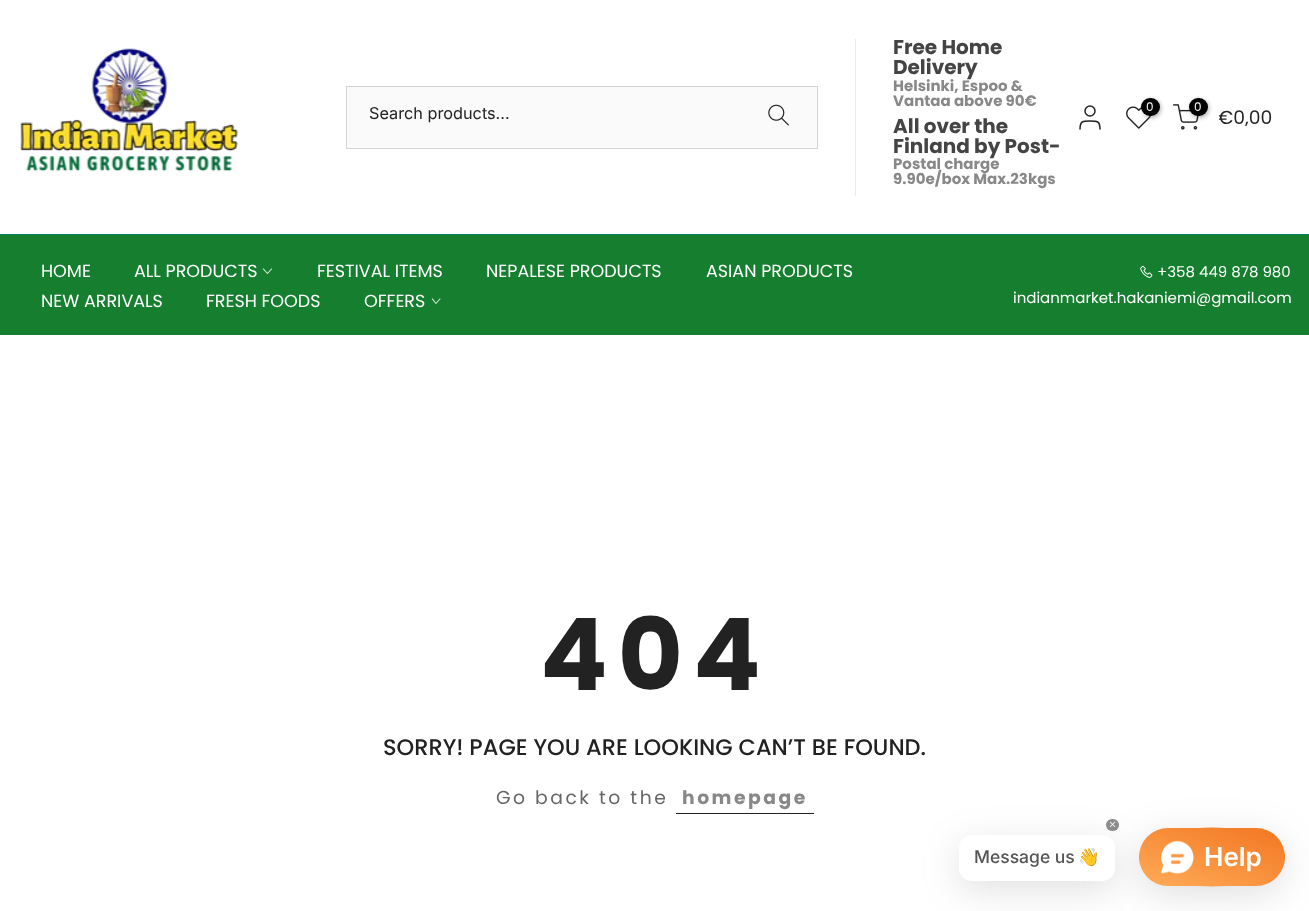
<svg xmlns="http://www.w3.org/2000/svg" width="1309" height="911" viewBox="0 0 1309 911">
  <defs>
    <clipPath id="clip1"><rect x="1219" y="108" width="54" height="18"/></clipPath>
    <linearGradient id="g1" gradientUnits="userSpaceOnUse" x1="1229" y1="808" x2="1195" y2="906"><stop offset="0" stop-color="rgb(242,117,33)"/><stop offset="1" stop-color="rgb(255,172,88)"/></linearGradient>
  </defs>
  <rect width="100%" height="100%" fill="rgb(255,255,255)"/>
  <rect x="0" y="234" width="1309" height="1" fill="rgb(0,128,96)"/>
  <image x="20" y="48" width="218" height="124" href="pic1.png"/>
  <rect x="346.5" y="86.5" width="471" height="62" fill="rgb(250,250,250)" stroke="rgb(212,212,212)"/>
  <text x="369" y="119" font-family="Inter" font-size="16.25" fill="rgb(34,34,34)">Search products...</text>
  <image x="768" y="104" width="21" height="22" href="pic2.png"/>
  <rect x="855" y="39" width="1" height="157" fill="rgb(235,235,235)"/>
  <g font-family="Poppins" font-size="20" font-weight="bold" fill="rgb(68,68,68)">
    <text>
      <tspan x="893" y="54">Free Home</tspan>
      <tspan x="893" y="74">Delivery</tspan>
    </text>
  </g>
  <g font-family="Poppins" font-size="15" font-weight="bold" fill="rgb(136,136,136)">
    <text>
      <tspan x="893" y="91">Helsinki, Espoo &amp;</tspan>
      <tspan x="893" y="106">Vantaa above 90€</tspan>
    </text>
  </g>
  <g font-family="Poppins" font-size="20" font-weight="bold" fill="rgb(68,68,68)">
    <text>
      <tspan x="893" y="133">All over the</tspan>
      <tspan x="893" y="153">Finland by Post-</tspan>
    </text>
  </g>
  <g font-family="Poppins" font-size="15" font-weight="bold" fill="rgb(136,136,136)">
    <text>
      <tspan x="893" y="169">Postal charge</tspan>
      <tspan x="893" y="184">9.90e/box Max.23kgs</tspan>
    </text>
  </g>
  <circle cx="1090" cy="111" r="5" fill="none" stroke="rgb(34,34,34)" stroke-width="1.5"/>
  <path d="M1100 129C1100 121 1097 121 1090 121C1083 121 1080 121 1080 129" fill="none" stroke="rgb(34,34,34)" stroke-width="1.5" stroke-linecap="round" stroke-linejoin="round"/>
  <image x="1126" y="106" width="26" height="23" href="pic3.png"/>
  <rect x="1143" y="99" width="18" height="19" rx="9" fill="rgba(0,0,0,0.3)" filter="blur(2px)"/>
  <rect x="1141" y="98" width="19" height="18" rx="9" fill="rgb(0,0,0)"/>
  <text x="1146" y="111" font-family="Poppins" font-size="12" fill="rgb(255,255,255)">0</text>
  <image x="1173" y="104" width="26" height="26" href="pic4.png"/>
  <rect x="1190" y="99" width="19" height="19" rx="9.5" fill="rgba(0,0,0,0.3)" filter="blur(2px)"/>
  <rect x="1189" y="98" width="19" height="18" rx="9" fill="rgb(0,0,0)"/>
  <text x="1194" y="111" font-family="Poppins" font-size="12" fill="rgb(255,255,255)">0</text>
  <g clip-path="url(#clip1)">
    <text x="1218" y="124" font-family="Poppins" font-size="18.75" fill="rgb(34,34,34)">€0,00</text>
  </g>
  <rect x="0" y="235" width="1309" height="100" fill="rgb(21,126,47)"/>
  <g font-family="Poppins" font-size="17.5" fill="rgb(255,255,255)">
    <text x="41" y="277">HOME</text>
    <text x="134" y="277">ALL PRODUCTS</text>
  </g>
  <path d="M271.5 269L267.5 273.5L263.5 269" fill="none" stroke="rgb(208,229,213)" stroke-width="1.1" stroke-linecap="square"/>
  <g font-family="Poppins" font-size="17.5" fill="rgb(255,255,255)">
    <text x="317" y="277">FESTIVAL ITEMS</text>
    <text x="486" y="277">NEPALESE PRODUCTS</text>
    <text x="706" y="277">ASIAN PRODUCTS</text>
    <text x="41" y="307">NEW ARRIVALS</text>
    <text x="206" y="307">FRESH FOODS</text>
    <text x="364" y="307">OFFERS</text>
  </g>
  <path d="M440 299L436 303.5L432.5 299" fill="none" stroke="rgb(208,229,213)" stroke-width="1.1" stroke-linecap="square"/>
  <image x="1140" y="265" width="13" height="13" href="pic5.png"/>
  <g font-family="Poppins" font-size="15" fill="rgb(255,255,255)">
    <text x="1157" y="277">+358 449 878 980</text>
    <text x="1013" y="303">indianmarket.hakaniemi@gmail.com</text>
  </g>
  <text x="540" y="690" font-family="Poppins" font-size="100" font-weight="bold" letter-spacing="10" fill="rgb(34,34,34)">404</text>
  <text x="383" y="755" font-family="Poppins" font-size="22.5" font-weight="500" fill="rgb(34,34,34)">SORRY! PAGE YOU ARE LOOKING CAN’T BE FOUND.</text>
  <text x="496" y="804" font-family="Poppins" font-size="18.75" letter-spacing="2.5" fill="rgb(102,102,102)">Go back to the</text>
  <text x="682" y="804" font-family="Poppins" font-size="18.75" font-weight="bold" letter-spacing="2.5" fill="rgb(136,136,136)">homepage</text>
  <rect x="676" y="813" width="138" height="1" fill="rgb(34,34,34)"/>
  <rect x="1139" y="836" width="146" height="59" rx="29.5" fill="rgba(100,100,111,0.2)" filter="blur(18px)"/>
  <rect x="1139" y="828" width="146" height="58" rx="29" fill="url(#g1)"/>
  <ellipse cx="1212" cy="857" rx="73" ry="29.5" fill="url(#g1)"/>
  <image x="1161" y="840" width="33" height="34" href="pic7.png"/>
  <rect x="959" y="844" width="156" height="46" rx="13" fill="rgba(100,100,111,0.2)" filter="blur(18px)"/>
  <rect x="959" y="835" width="156" height="46" rx="13" fill="rgb(255,255,255)"/>
  <rect x="1106" y="819" width="13" height="12" rx="6" fill="rgba(48,48,48,0.55)"/>
  <image x="1109" y="821" width="7" height="6" href="pic6.png"/>
  <text x="974" y="863" font-family="Inter" font-size="17.5" font-weight="500" fill="rgb(85,85,85)">Message us</text>
  <text x="1078" y="863" font-family="Noto Color Emoji" font-size="17.5" fill="rgb(85,85,85)">👋</text>
  <text x="1204" y="866" font-family="Inter" font-size="26" font-weight="600" fill="rgb(255,255,255)">Help</text>
</svg>
